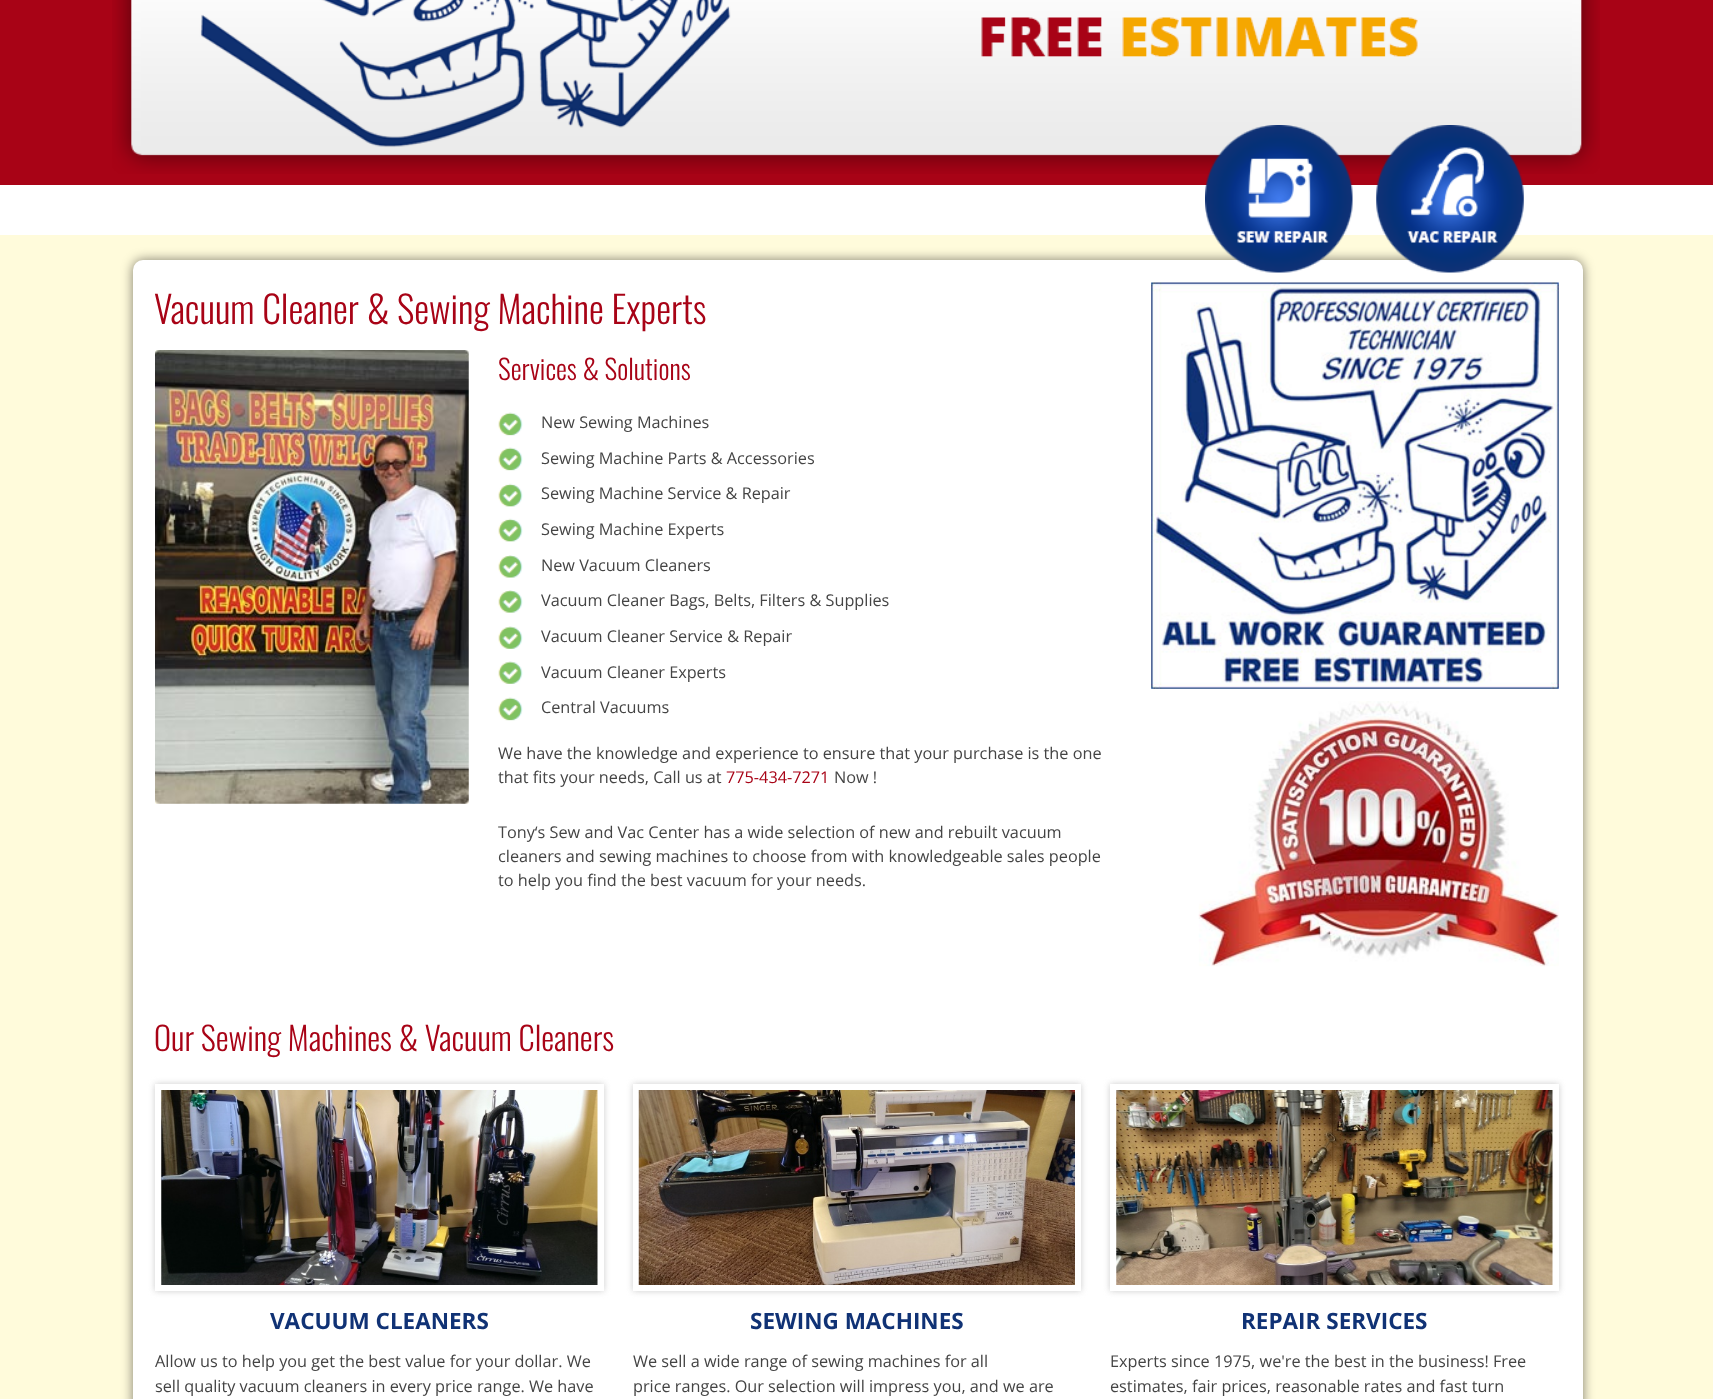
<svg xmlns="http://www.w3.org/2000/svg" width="1713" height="1399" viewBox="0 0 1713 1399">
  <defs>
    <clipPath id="clip1"><path d="M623 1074H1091V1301H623ZM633 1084H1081V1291H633Z" clip-rule="evenodd"/></clipPath>
  </defs>
  <rect width="100%" height="100%" fill="rgb(255,255,255)"/>
  <rect x="0" y="0" width="1713" height="185" fill="rgb(168,3,22)"/>
  <image x="112" y="0" width="1488" height="174" href="pic1.png"/>
  <rect x="0" y="235" width="1713" height="1164" fill="rgb(255,251,219)"/>
  <rect x="133" y="260" width="1450" height="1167" rx="10" fill="rgba(0,0,0,0.5)" filter="blur(6px)"/>
  <rect x="133" y="260" width="1450" height="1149" rx="10" fill="rgb(255,255,255)"/>
  <text x="154" y="324" font-family="Oswald" font-size="37.5" font-weight="300" fill="rgb(168,3,22)">Vacuum Cleaner &amp; Sewing Machine Experts</text>
  <image x="155" y="350" width="314" height="454" href="pic2.png"/>
  <text x="498" y="380" font-family="Oswald" font-size="27.5" font-weight="300" fill="rgb(168,3,22)">Services &amp; Solutions</text>
  <image x="498" y="412" width="25" height="24" href="pic3.png"/>
  <text x="541" y="428" font-family="Open Sans" font-size="16.25" fill="rgb(68,68,68)">New Sewing Machines</text>
  <image x="498" y="447" width="25" height="24" href="pic4.png"/>
  <text x="541" y="464" font-family="Open Sans" font-size="16.25" fill="rgb(68,68,68)">Sewing Machine Parts &amp; Accessories</text>
  <image x="498" y="483" width="25" height="24" href="pic5.png"/>
  <text x="541" y="499" font-family="Open Sans" font-size="16.25" fill="rgb(68,68,68)">Sewing Machine Service &amp; Repair</text>
  <image x="498" y="518" width="25" height="24" href="pic5.png"/>
  <text x="541" y="535" font-family="Open Sans" font-size="16.25" fill="rgb(68,68,68)">Sewing Machine Experts</text>
  <image x="498" y="555" width="25" height="23" href="pic6.png"/>
  <text x="541" y="571" font-family="Open Sans" font-size="16.25" fill="rgb(68,68,68)">New Vacuum Cleaners</text>
  <image x="498" y="590" width="25" height="23" href="pic7.png"/>
  <text x="541" y="606" font-family="Open Sans" font-size="16.25" fill="rgb(68,68,68)">Vacuum Cleaner Bags, Belts, Filters &amp; Supplies</text>
  <image x="498" y="626" width="25" height="23" href="pic8.png"/>
  <text x="541" y="642" font-family="Open Sans" font-size="16.25" fill="rgb(68,68,68)">Vacuum Cleaner Service &amp; Repair</text>
  <image x="498" y="661" width="25" height="23" href="pic8.png"/>
  <text x="541" y="678" font-family="Open Sans" font-size="16.25" fill="rgb(68,68,68)">Vacuum Cleaner Experts</text>
  <image x="498" y="697" width="25" height="24" href="pic3.png"/>
  <g font-family="Open Sans" font-size="16.25" fill="rgb(68,68,68)">
    <text x="541" y="713">Central Vacuums</text>
    <text>
      <tspan x="498" y="759">We have the knowledge and experience to ensure that your purchase is the one</tspan>
      <tspan x="498" y="783">that fits your needs, Call us at</tspan>
    </text>
  </g>
  <text x="726" y="783" font-family="Open Sans" font-size="16.25" fill="rgb(168,3,22)">775-434-7271</text>
  <g font-family="Open Sans" font-size="16.25" fill="rgb(68,68,68)">
    <text x="834" y="783">Now !</text>
    <text>
      <tspan x="498" y="838">Tony‘s Sew and Vac Center has a wide selection of new and rebuilt vacuum</tspan>
      <tspan x="498" y="862">cleaners and sewing machines to choose from with knowledgeable sales people</tspan>
      <tspan x="498" y="886">to help you find the best vacuum for your needs.</tspan>
    </text>
  </g>
  <image x="1205" y="125" width="148" height="148" href="pic9.png"/>
  <image x="1376" y="125" width="148" height="148" href="pic10.png"/>
  <image x="1151" y="282" width="408" height="407" href="pic11.png"/>
  <image x="1198" y="701" width="361" height="266" href="pic12.png"/>
  <text x="154" y="1051" font-family="Oswald" font-size="32.5" font-weight="300" fill="rgb(168,3,22)">Our Sewing Machines &amp; Vacuum Cleaners</text>
  <rect x="155" y="1084" width="449" height="207" fill="rgb(204,204,204)" filter="blur(3px)"/>
  <rect x="155" y="1084" width="449" height="207" fill="rgb(255,255,255)"/>
  <image x="161" y="1090" width="437" height="195" href="pic13.png"/>
  <text x="270" y="1329" font-family="Open Sans" font-size="22.5" font-weight="bold" fill="rgb(16,50,117)">VACUUM CLEANERS</text>
  <g font-family="Open Sans" font-size="16.25" fill="rgb(68,68,68)">
    <text>
      <tspan x="155" y="1367">Allow us to help you get the best value for your dollar. We</tspan>
      <tspan x="155" y="1392">sell quality vacuum cleaners in every price range. We have</tspan>
    </text>
  </g>
  <g clip-path="url(#clip1)">
    <rect x="633" y="1084" width="448" height="207" fill="rgb(204,204,204)" filter="blur(3px)"/>
  </g>
  <image x="638" y="1090" width="437" height="195" href="pic14.png"/>
  <text x="750" y="1329" font-family="Open Sans" font-size="22.5" font-weight="bold" fill="rgb(16,50,117)">SEWING MACHINES</text>
  <g font-family="Open Sans" font-size="16.25" fill="rgb(68,68,68)">
    <text>
      <tspan x="633" y="1367">We sell a wide range of sewing machines for all</tspan>
      <tspan x="633" y="1392">price ranges. Our selection will impress you, and we are</tspan>
    </text>
  </g>
  <rect x="1110" y="1084" width="449" height="207" fill="rgb(204,204,204)" filter="blur(3px)"/>
  <rect x="1110" y="1084" width="449" height="207" fill="rgb(255,255,255)"/>
  <image x="1116" y="1090" width="437" height="195" href="pic15.png"/>
  <text x="1241" y="1329" font-family="Open Sans" font-size="22.5" font-weight="bold" fill="rgb(16,50,117)">REPAIR SERVICES</text>
  <g font-family="Open Sans" font-size="16.25" fill="rgb(68,68,68)">
    <text>
      <tspan x="1110" y="1367">Experts since 1975, we're the best in the business! Free</tspan>
      <tspan x="1110" y="1392">estimates, fair prices, reasonable rates and fast turn</tspan>
    </text>
  </g>
</svg>
